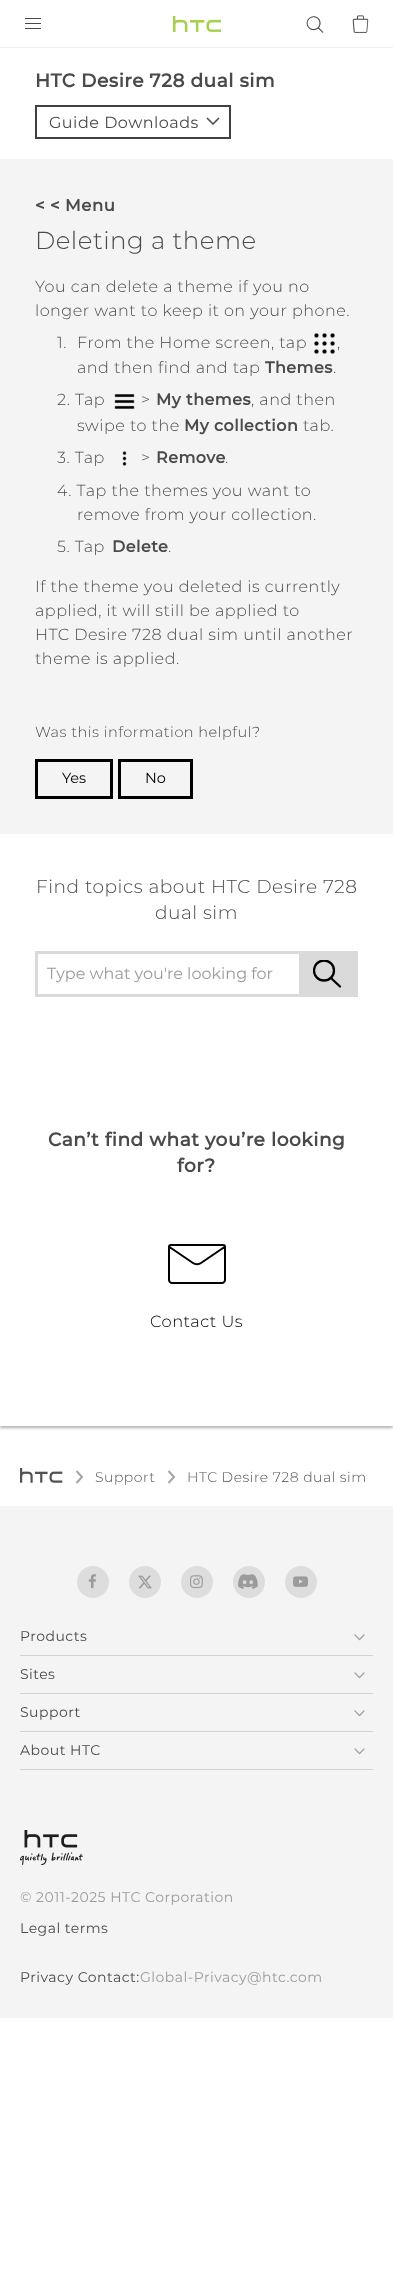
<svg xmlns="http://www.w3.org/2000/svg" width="393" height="2274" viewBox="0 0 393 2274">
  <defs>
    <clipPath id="clip1"><rect x="313" y="960" width="28" height="28"/></clipPath>
  </defs>
  <rect width="100%" height="100%" fill="rgb(255,255,255)"/>
  <rect x="0" y="50" width="393" height="1378" fill="rgba(0,0,0,0.3)" filter="blur(1.5px)"/>
  <rect x="0" y="47" width="393" height="1" fill="rgb(239,239,239)"/>
  <rect x="25" y="23" width="16" height="1" fill="rgb(74,74,74)"/>
  <rect x="25" y="18" width="16" height="1" fill="rgb(74,74,74)"/>
  <rect x="25" y="28" width="16" height="1" fill="rgb(74,74,74)"/>
  <image x="173" y="16" width="48" height="16" href="pic1.png"/>
  <image x="306" y="16" width="18" height="17" href="pic2.png"/>
  <image x="352" y="15" width="17" height="18" href="pic3.png"/>
  <rect x="0" y="48" width="393" height="1378" fill="rgb(255,255,255)"/>
  <text x="35" y="87" font-family="Montserrat" font-size="18.6" font-weight="bold" letter-spacing="0.5" fill="rgb(74,74,74)">HTC Desire 728 dual sim</text>
  <rect x="36" y="106" width="194" height="32" fill="none" stroke="rgb(64,64,64)" stroke-width="2"/>
  <text x="49" y="128" font-family="Montserrat" font-size="16" letter-spacing="0.5" fill="rgb(74,74,74)">Guide Downloads</text>
  <image x="206" y="117" width="14" height="9" href="pic4.png"/>
  <rect x="0" y="159" width="393" height="675" fill="rgb(244,244,244)"/>
  <text x="35" y="211" font-family="Montserrat" font-size="16.5" font-weight="bold" letter-spacing="0.5" fill="rgb(74,74,74)">&lt; &lt; Menu</text>
  <text x="35" y="249" font-family="Montserrat" font-size="24.5" font-weight="300" letter-spacing="0.5" fill="rgb(74,74,74)">Deleting a theme</text>
  <g font-family="Montserrat" font-size="16" font-weight="300" letter-spacing="0.5" fill="rgb(74,74,74)">
    <text>
      <tspan x="35" y="292">You can delete a theme if you no</tspan>
      <tspan x="35" y="316">longer want to keep it on your phone.</tspan>
    </text>
    <text x="57" y="348">1.</text>
    <text x="77" y="348">From the Home screen, tap</text>
  </g>
  <image x="314" y="333" width="21" height="21" href="pic5.png"/>
  <g font-family="Montserrat" font-size="16" font-weight="300" letter-spacing="0.5" fill="rgb(74,74,74)">
    <text x="337" y="348">,</text>
    <text x="77" y="373">and then find and tap</text>
  </g>
  <text x="265" y="373" font-family="Montserrat" font-size="16" font-weight="bold" letter-spacing="0.5" fill="rgb(74,74,74)">Themes</text>
  <g font-family="Montserrat" font-size="16" font-weight="300" letter-spacing="0.5" fill="rgb(74,74,74)">
    <text x="333" y="373">.</text>
    <text x="57" y="405">2. Tap</text>
  </g>
  <image x="114" y="394" width="21" height="15" href="pic6.png"/>
  <text x="141" y="405" font-family="Montserrat" font-size="16" font-weight="300" letter-spacing="0.5" fill="rgb(74,74,74)">&gt;</text>
  <text x="156" y="405" font-family="Montserrat" font-size="16" font-weight="bold" letter-spacing="0.5" fill="rgb(74,74,74)">My themes</text>
  <g font-family="Montserrat" font-size="16" font-weight="300" letter-spacing="0.5" fill="rgb(74,74,74)">
    <text x="251" y="405">, and then</text>
    <text x="77" y="431">swipe to the</text>
  </g>
  <text x="184" y="431" font-family="Montserrat" font-size="16" font-weight="bold" letter-spacing="0.5" fill="rgb(74,74,74)">My collection</text>
  <g font-family="Montserrat" font-size="16" font-weight="300" letter-spacing="0.5" fill="rgb(74,74,74)">
    <text x="303" y="431">tab.</text>
    <text x="57" y="463">3. Tap</text>
  </g>
  <image x="122" y="451" width="5" height="15" href="pic7.png"/>
  <text x="141" y="463" font-family="Montserrat" font-size="16" font-weight="300" letter-spacing="0.5" fill="rgb(74,74,74)">&gt;</text>
  <text x="156" y="463" font-family="Montserrat" font-size="16" font-weight="bold" letter-spacing="0.5" fill="rgb(74,74,74)">Remove</text>
  <g font-family="Montserrat" font-size="16" font-weight="300" letter-spacing="0.5" fill="rgb(74,74,74)">
    <text x="225" y="463">.</text>
    <text x="57" y="496">4. Tap the themes you want to</text>
    <text x="77" y="520">remove from your collection.</text>
    <text x="57" y="552">5. Tap</text>
  </g>
  <text x="112" y="552" font-family="Montserrat" font-size="16" font-weight="bold" letter-spacing="0.5" fill="rgb(74,74,74)">Delete</text>
  <g font-family="Montserrat" font-size="16" font-weight="300" letter-spacing="0.5" fill="rgb(74,74,74)">
    <text x="168" y="552">.</text>
    <text>
      <tspan x="35" y="592">If the theme you deleted is currently</tspan>
      <tspan x="35" y="616">applied, it will still be applied to</tspan>
      <tspan x="35" y="640">HTC Desire 728 dual sim until another</tspan>
      <tspan x="35" y="664">theme is applied.</tspan>
    </text>
  </g>
  <text x="35" y="737" font-family="Montserrat" font-size="14.5" font-weight="300" letter-spacing="0.5" fill="rgb(74,74,74)">Was this information helpful?</text>
  <rect x="36.5" y="760.5" width="75" height="37" fill="none" stroke="rgb(0,0,0)" stroke-width="3"/>
  <text x="62" y="783" font-family="Montserrat" font-size="14.5" fill="rgb(0,0,0)">Yes</text>
  <rect x="119.5" y="760.5" width="72" height="37" fill="none" stroke="rgb(0,0,0)" stroke-width="3"/>
  <text x="145" y="783" font-family="Montserrat" font-size="14.5" fill="rgb(0,0,0)">No</text>
  <g font-family="Montserrat" font-size="18.6" font-weight="300" letter-spacing="0.5" fill="rgb(74,74,74)">
    <text x="36" y="893">Find topics about HTC Desire 728</text>
    <text x="155" y="919">dual sim</text>
  </g>
  <rect x="36.5" y="952.5" width="320" height="43" fill="none" stroke="rgb(218,218,218)" stroke-width="3"/>
  <text x="47" y="979" font-family="Montserrat" font-size="16" fill="rgb(155,155,155)">Type what you're looking for</text>
  <rect x="299" y="954" width="56" height="40" fill="rgb(218,218,218)"/>
  <g clip-path="url(#clip1)">
    <circle cx="324" cy="970.5" r="10" fill="none" stroke="rgb(0,0,0)" stroke-width="2.3"/>
  </g>
  <path d="M332 979L340 986.5" fill="none" stroke="rgb(0,0,0)" stroke-width="2.3" stroke-linecap="round"/>
  <g font-family="Montserrat" font-size="18.6" font-weight="bold" letter-spacing="0.5" fill="rgb(74,74,74)">
    <text x="48" y="1146">Can’t find what you’re looking</text>
    <text x="177" y="1172">for?</text>
  </g>
  <path d="M222 1283H172C170.5 1283 169 1281.5 169 1280V1247C169 1246 170 1245 171 1245H223C224 1245 225 1246 225 1247V1280C225 1281.5 223.5 1283 222 1283ZM169.5 1247L193 1263C195 1264.5 199 1264.5 201 1263L224.5 1247" fill="none" stroke="rgb(0,0,0)" stroke-width="2" stroke-linecap="round" stroke-linejoin="round"/>
  <text x="150" y="1327" font-family="Montserrat" font-size="16.25" font-weight="300" letter-spacing="0.5" fill="rgb(0,0,0)">Contact Us</text>
  <image x="20" y="1468" width="43" height="15" href="pic8.png"/>
  <path d="M76.5 1471L82 1477L76.5 1483" fill="none" stroke="rgb(165,165,165)" stroke-width="2"/>
  <text x="95" y="1482" font-family="Montserrat" font-size="14" font-weight="300" letter-spacing="0.5" fill="rgb(82,82,82)">Support</text>
  <path d="M168.5 1471L174 1477L168.5 1483" fill="none" stroke="rgb(165,165,165)" stroke-width="2"/>
  <text x="187" y="1482" font-family="Montserrat" font-size="14" font-weight="300" letter-spacing="0.5" fill="rgb(82,82,82)">HTC Desire 728 dual sim</text>
  <rect x="0" y="1506" width="393" height="512" fill="rgb(244,244,244)"/>
  <circle cx="93" cy="1582" r="16" fill="rgb(221,221,221)"/>
  <image x="88" y="1574" width="8" height="15" href="pic9.png"/>
  <circle cx="145" cy="1582" r="16" fill="rgb(221,221,221)"/>
  <image x="138" y="1575" width="14" height="14" href="pic10.png"/>
  <circle cx="197" cy="1582" r="16" fill="rgb(221,221,221)"/>
  <image x="190" y="1575" width="13" height="14" href="pic11.png"/>
  <circle cx="249" cy="1582" r="16" fill="rgb(221,221,221)"/>
  <image x="238" y="1574" width="20" height="15" href="pic12.png"/>
  <circle cx="301" cy="1582" r="16" fill="rgb(221,221,221)"/>
  <image x="293" y="1576" width="15" height="11" href="pic13.png"/>
  <rect x="20" y="1655" width="353" height="1" fill="rgb(210,210,210)"/>
  <text x="20" y="1641" font-family="Montserrat" font-size="14" letter-spacing="0.5" fill="rgb(74,74,74)">Products</text>
  <image x="354" y="1634" width="11" height="7" href="pic14.png"/>
  <rect x="20" y="1693" width="353" height="1" fill="rgb(210,210,210)"/>
  <text x="20" y="1679" font-family="Montserrat" font-size="14" letter-spacing="0.5" fill="rgb(74,74,74)">Sites</text>
  <image x="354" y="1672" width="11" height="7" href="pic14.png"/>
  <rect x="20" y="1731" width="353" height="1" fill="rgb(210,210,210)"/>
  <text x="20" y="1717" font-family="Montserrat" font-size="14" letter-spacing="0.5" fill="rgb(74,74,74)">Support</text>
  <image x="354" y="1710" width="11" height="7" href="pic14.png"/>
  <rect x="20" y="1769" width="353" height="1" fill="rgb(210,210,210)"/>
  <text x="20" y="1755" font-family="Montserrat" font-size="14" letter-spacing="0.5" fill="rgb(74,74,74)">About HTC</text>
  <image x="354" y="1748" width="11" height="7" href="pic14.png"/>
  <image x="20" y="1830" width="63" height="35" href="pic15.png"/>
  <text x="20" y="1902" font-family="Montserrat" font-size="14" letter-spacing="0.5" fill="rgb(155,155,155)">© 2011-2025 HTC Corporation</text>
  <g font-family="Montserrat" font-size="14" letter-spacing="0.5" fill="rgb(74,74,74)">
    <text x="20" y="1933">Legal terms</text>
    <text x="20" y="1982">Privacy Contact:</text>
  </g>
  <text x="140" y="1982" font-family="Montserrat" font-size="14" letter-spacing="0.5" fill="rgb(155,155,155)">Global-Privacy@htc.com</text>
</svg>
